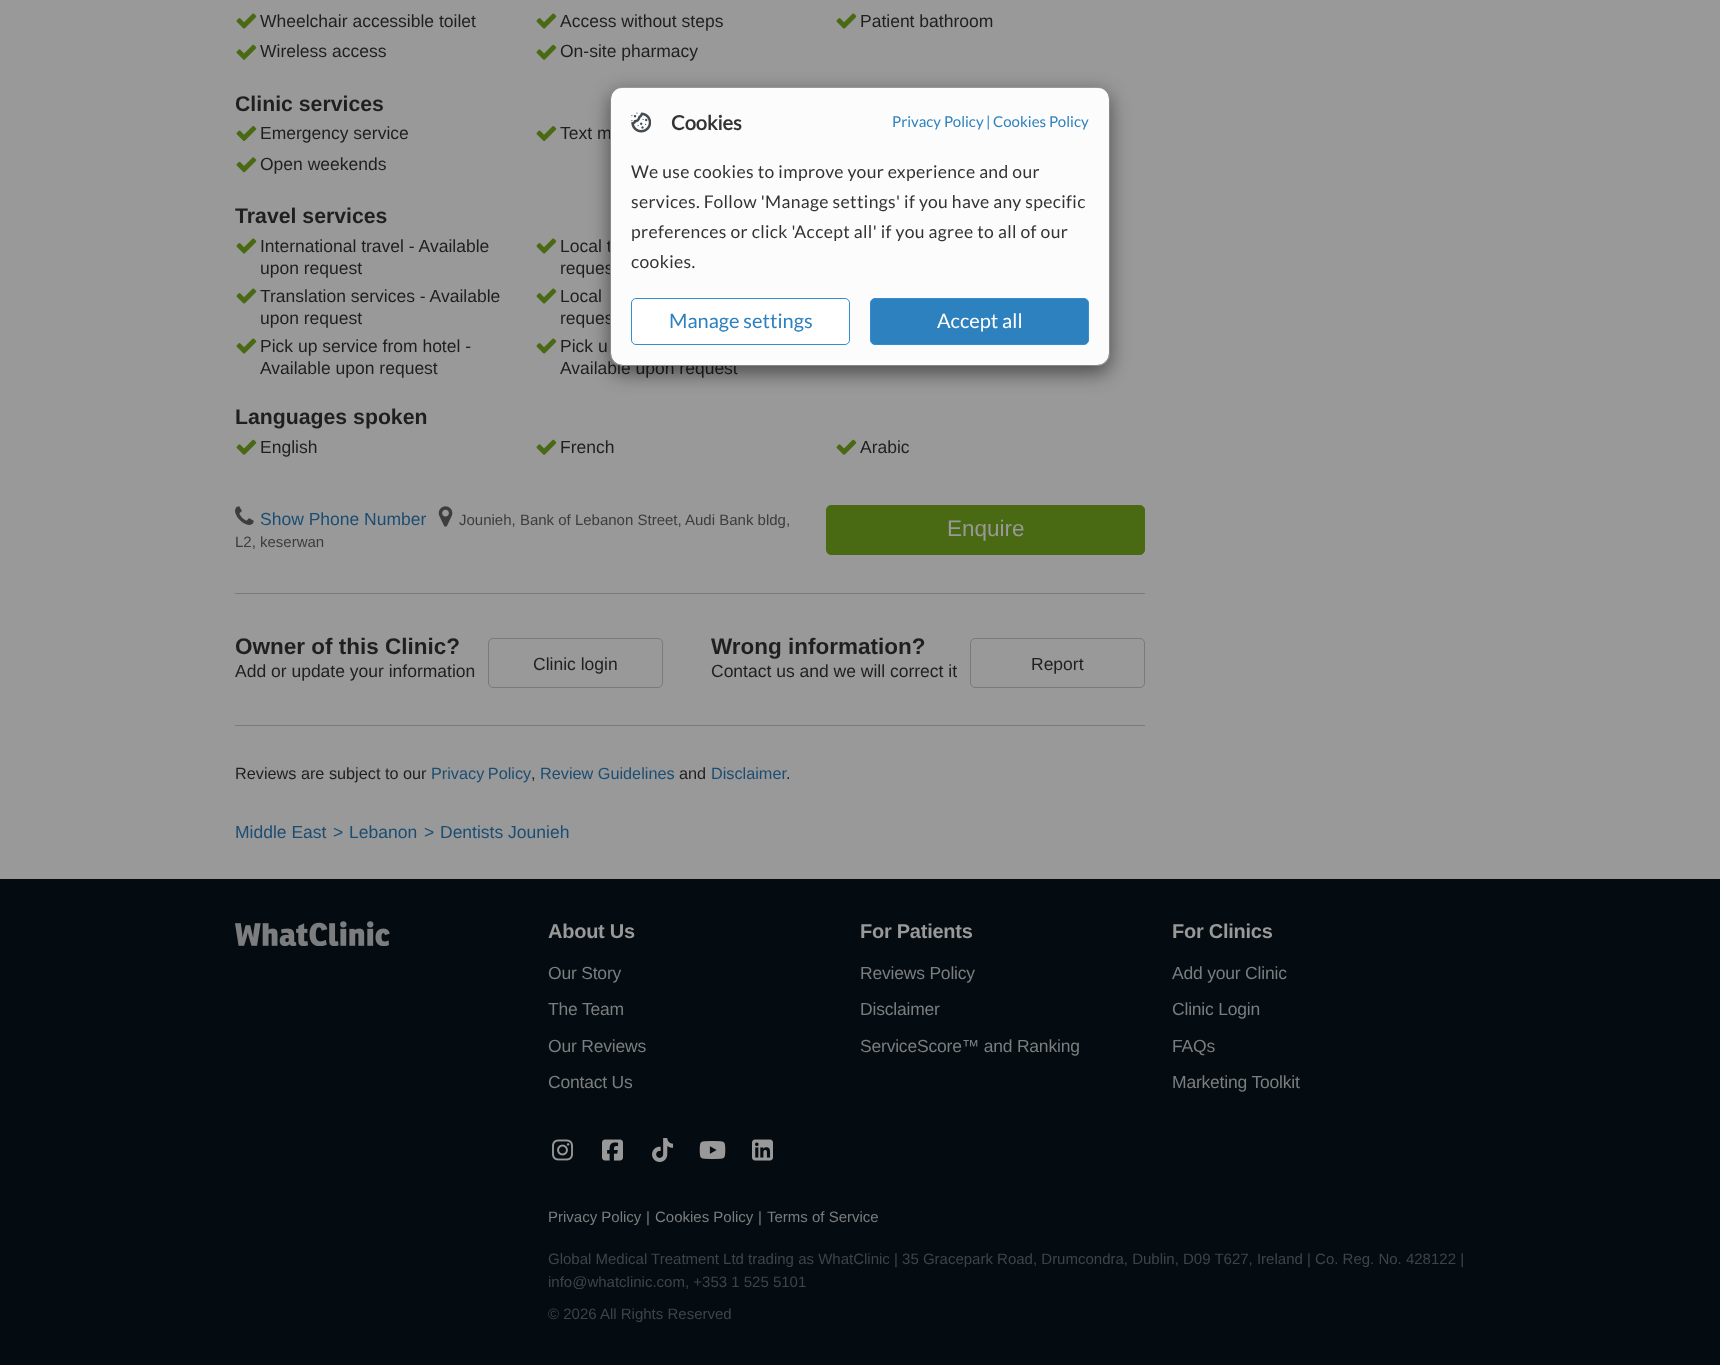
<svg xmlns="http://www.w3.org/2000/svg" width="1720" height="1365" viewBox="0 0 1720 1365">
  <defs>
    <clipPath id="clip1"><path d="M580 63H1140V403H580ZM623 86H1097C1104 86 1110 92 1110 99V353C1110 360 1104 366 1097 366H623C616 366 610 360 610 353V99C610 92 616 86 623 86Z" clip-rule="evenodd"/></clipPath>
  </defs>
  <rect width="100%" height="100%" fill="rgb(153,153,153)"/>
  <image x="236" y="13" width="21" height="16" href="pic1.png"/>
  <text x="260" y="27" font-family="Liberation Sans" font-size="17.5" fill="rgb(31,31,31)">Wheelchair accessible toilet</text>
  <image x="536" y="13" width="21" height="16" href="pic1.png"/>
  <text x="560" y="27" font-family="Liberation Sans" font-size="17.5" fill="rgb(31,31,31)">Access without steps</text>
  <image x="836" y="13" width="21" height="16" href="pic1.png"/>
  <text x="860" y="27" font-family="Liberation Sans" font-size="17.5" fill="rgb(31,31,31)">Patient bathroom</text>
  <image x="236" y="44" width="21" height="16" href="pic2.png"/>
  <text x="260" y="57" font-family="Liberation Sans" font-size="17.5" fill="rgb(31,31,31)">Wireless access</text>
  <image x="536" y="44" width="21" height="16" href="pic2.png"/>
  <text x="560" y="57" font-family="Liberation Sans" font-size="17.5" fill="rgb(31,31,31)">On-site pharmacy</text>
  <text x="235" y="111" font-family="Liberation Sans" font-size="21.25" font-weight="bold" fill="rgb(31,31,31)">Clinic services</text>
  <image x="236" y="126" width="21" height="15" href="pic3.png"/>
  <text x="260" y="139" font-family="Liberation Sans" font-size="17.5" fill="rgb(31,31,31)">Emergency service</text>
  <image x="536" y="126" width="21" height="15" href="pic3.png"/>
  <text x="560" y="139" font-family="Liberation Sans" font-size="17.5" fill="rgb(31,31,31)">Text m</text>
  <image x="236" y="157" width="21" height="16" href="pic4.png"/>
  <text x="260" y="170" font-family="Liberation Sans" font-size="17.5" fill="rgb(31,31,31)">Open weekends</text>
  <text x="235" y="223" font-family="Liberation Sans" font-size="21.25" font-weight="bold" fill="rgb(31,31,31)">Travel services</text>
  <image x="236" y="238" width="21" height="16" href="pic1.png"/>
  <g font-family="Liberation Sans" font-size="17.5" fill="rgb(31,31,31)">
    <text>
      <tspan x="260" y="252">International travel - Available</tspan>
      <tspan x="260" y="274">upon request</tspan>
    </text>
  </g>
  <image x="536" y="238" width="21" height="16" href="pic1.png"/>
  <g font-family="Liberation Sans" font-size="17.5" fill="rgb(31,31,31)">
    <text>
      <tspan x="560" y="252">Local t</tspan>
      <tspan x="560" y="274">reques</tspan>
    </text>
  </g>
  <image x="236" y="288" width="21" height="16" href="pic1.png"/>
  <g font-family="Liberation Sans" font-size="17.5" fill="rgb(31,31,31)">
    <text>
      <tspan x="260" y="302">Translation services - Available</tspan>
      <tspan x="260" y="324">upon request</tspan>
    </text>
  </g>
  <image x="536" y="288" width="21" height="16" href="pic1.png"/>
  <g font-family="Liberation Sans" font-size="17.5" fill="rgb(31,31,31)">
    <text>
      <tspan x="560" y="302">Local</tspan>
      <tspan x="560" y="324">reques</tspan>
    </text>
  </g>
  <image x="236" y="338" width="21" height="16" href="pic1.png"/>
  <g font-family="Liberation Sans" font-size="17.5" fill="rgb(31,31,31)">
    <text>
      <tspan x="260" y="352">Pick up service from hotel -</tspan>
      <tspan x="260" y="374">Available upon request</tspan>
    </text>
  </g>
  <image x="536" y="338" width="21" height="16" href="pic1.png"/>
  <g font-family="Liberation Sans" font-size="17.5" fill="rgb(31,31,31)">
    <text>
      <tspan x="560" y="352">Pick u</tspan>
      <tspan x="560" y="374">Available upon request</tspan>
    </text>
  </g>
  <text x="235" y="424" font-family="Liberation Sans" font-size="21.25" font-weight="bold" fill="rgb(31,31,31)">Languages spoken</text>
  <image x="236" y="439" width="21" height="16" href="pic2.png"/>
  <text x="260" y="453" font-family="Liberation Sans" font-size="17.5" fill="rgb(31,31,31)">English</text>
  <image x="536" y="439" width="21" height="16" href="pic2.png"/>
  <text x="560" y="453" font-family="Liberation Sans" font-size="17.5" fill="rgb(31,31,31)">French</text>
  <image x="836" y="439" width="21" height="16" href="pic2.png"/>
  <text x="860" y="453" font-family="Liberation Sans" font-size="17.5" fill="rgb(31,31,31)">Arabic</text>
  <image x="235" y="506" width="19" height="19" href="pic5.png"/>
  <text x="260" y="525" font-family="Liberation Sans" font-size="17.5" fill="rgb(27,77,114)">Show Phone Number</text>
  <image x="438" y="506" width="15" height="21" href="pic6.png"/>
  <g font-family="Liberation Sans" font-size="15" fill="rgb(61,61,61)">
    <text x="459" y="525">Jounieh, Bank of Lebanon Street, Audi Bank bldg,</text>
    <text x="235" y="547">L2, keserwan</text>
  </g>
  <rect x="826.5" y="505.5" width="318" height="49" rx="4.5" fill="rgb(73,105,19)" stroke="rgb(73,105,19)"/>
  <text x="947" y="536" font-family="Liberation Sans" font-size="22.5" fill="rgb(153,153,153)">Enquire</text>
  <rect x="235" y="593" width="910" height="1" fill="rgb(122,122,122)"/>
  <rect x="235" y="725" width="910" height="1" fill="rgb(122,122,122)"/>
  <text x="235" y="654" font-family="Liberation Sans" font-size="22.5" font-weight="bold" fill="rgb(31,31,31)">Owner of this Clinic?</text>
  <text x="235" y="677" font-family="Liberation Sans" font-size="17.5" fill="rgb(31,31,31)">Add or update your information</text>
  <rect x="488.5" y="638.5" width="174" height="49" rx="4.5" fill="none" stroke="rgb(122,122,122)"/>
  <text x="533" y="670" font-family="Liberation Sans" font-size="17.5" fill="rgb(31,31,31)">Clinic login</text>
  <text x="711" y="654" font-family="Liberation Sans" font-size="22.5" font-weight="bold" fill="rgb(31,31,31)">Wrong information?</text>
  <text x="711" y="677" font-family="Liberation Sans" font-size="17.5" fill="rgb(31,31,31)">Contact us and we will correct it</text>
  <rect x="970.5" y="638.5" width="174" height="49" rx="4.5" fill="none" stroke="rgb(122,122,122)"/>
  <text x="1031" y="670" font-family="Liberation Sans" font-size="17.5" fill="rgb(31,31,31)">Report</text>
  <text x="235" y="779" font-family="Liberation Sans" font-size="16.25" fill="rgb(31,31,31)">Reviews are subject to our</text>
  <text x="431" y="779" word-spacing="-1" font-family="Liberation Sans" font-size="16.25" fill="rgb(27,77,114)">Privacy Policy</text>
  <text x="531" y="779" font-family="Liberation Sans" font-size="16.25" fill="rgb(31,31,31)">,</text>
  <text x="540" y="779" font-family="Liberation Sans" font-size="16.25" fill="rgb(27,77,114)">Review Guidelines</text>
  <text x="679" y="779" font-family="Liberation Sans" font-size="16.25" fill="rgb(31,31,31)">and</text>
  <text x="711" y="779" font-family="Liberation Sans" font-size="16.25" fill="rgb(27,77,114)">Disclaimer</text>
  <text x="786" y="779" font-family="Liberation Sans" font-size="16.25" fill="rgb(31,31,31)">.</text>
  <g font-family="Liberation Sans" font-size="17.5" fill="rgb(27,77,114)">
    <text x="235" y="838">Middle East</text>
    <text x="333" y="838">&gt;</text>
    <text x="349" y="838">Lebanon</text>
    <text x="424" y="838">&gt;</text>
    <text x="440" y="838">Dentists Jounieh</text>
  </g>
  <g clip-path="url(#clip1)">
    <rect x="610" y="93" width="500" height="280" rx="13" fill="rgba(0,0,0,0.5)" filter="blur(9.5px)"/>
  </g>
  <rect x="611" y="88" width="498" height="277" rx="11" fill="rgb(252,252,252)"/>
  <rect x="610.5" y="86.5" width="499" height="279" rx="12.5" fill="none" stroke="rgb(136,136,136)"/>
  <image x="631" y="112" width="20" height="21" href="pic7.png"/>
  <text x="671" y="130" font-family="Lato" font-size="20" font-weight="bold" fill="rgb(51,51,51)">Cookies</text>
  <g font-family="Lato" font-size="15" fill="rgb(45,129,190)">
    <text x="892" y="127">Privacy Policy</text>
    <text x="986" y="127">|</text>
    <text x="993" y="127">Cookies Policy</text>
  </g>
  <g font-family="Lato" font-size="17.5" letter-spacing="0.35" fill="rgb(51,51,51)">
    <text>
      <tspan x="631" y="178">We use cookies to improve your experience and our</tspan>
      <tspan x="631" y="208">services. Follow 'Manage settings' if you have any specific</tspan>
      <tspan x="631" y="238">preferences or click 'Accept all' if you agree to all of our</tspan>
      <tspan x="631" y="268">cookies.</tspan>
    </text>
  </g>
  <rect x="631.5" y="298.5" width="218" height="46" rx="4.5" fill="rgb(255,255,255)" stroke="rgb(52,141,206)"/>
  <text x="669" y="328" font-family="Lato" font-size="20" fill="rgb(45,129,190)">Manage settings</text>
  <rect x="870.5" y="298.5" width="218" height="46" rx="4.5" fill="rgb(45,129,190)" stroke="rgb(52,141,206)"/>
  <text x="937" y="328" font-family="Lato" font-size="20" fill="rgb(255,255,255)">Accept all</text>
  <rect x="0" y="879" width="1720" height="486" fill="rgb(4,12,17)"/>
  <image x="235" y="921" width="155" height="25" href="pic8.png"/>
  <text x="548" y="938" font-family="Liberation Sans" font-size="20" font-weight="bold" letter-spacing="-0.25" fill="rgb(153,153,153)">About Us</text>
  <g font-family="Liberation Sans" font-size="17.5" letter-spacing="-0.2" fill="rgb(123,125,126)">
    <text x="548" y="979">Our Story</text>
    <text x="548" y="1015">The Team</text>
    <text x="548" y="1052">Our Reviews</text>
    <text x="548" y="1088">Contact Us</text>
  </g>
  <text x="860" y="938" font-family="Liberation Sans" font-size="20" font-weight="bold" letter-spacing="-0.25" fill="rgb(153,153,153)">For Patients</text>
  <g font-family="Liberation Sans" font-size="17.5" letter-spacing="-0.2" fill="rgb(123,125,126)">
    <text x="860" y="979">Reviews Policy</text>
    <text x="860" y="1015">Disclaimer</text>
    <text x="860" y="1052">ServiceScore™ and Ranking</text>
  </g>
  <text x="1172" y="938" font-family="Liberation Sans" font-size="20" font-weight="bold" letter-spacing="-0.25" fill="rgb(153,153,153)">For Clinics</text>
  <g font-family="Liberation Sans" font-size="17.5" letter-spacing="-0.2" fill="rgb(123,125,126)">
    <text x="1172" y="979">Add your Clinic</text>
    <text x="1172" y="1015">Clinic Login</text>
    <text x="1172" y="1052">FAQs</text>
    <text x="1172" y="1088">Marketing Toolkit</text>
  </g>
  <image x="552" y="1139" width="21" height="22" href="pic9.png"/>
  <image x="602" y="1139" width="21" height="22" href="pic10.png"/>
  <image x="652" y="1138" width="22" height="24" href="pic11.png"/>
  <image x="699" y="1141" width="27" height="18" href="pic12.png"/>
  <image x="752" y="1139" width="21" height="22" href="pic13.png"/>
  <g font-family="Liberation Sans" font-size="15" fill="rgb(123,125,126)">
    <text x="548" y="1222">Privacy Policy</text>
    <text x="646" y="1222">|</text>
    <text x="655" y="1222">Cookies Policy</text>
    <text x="758" y="1222">|</text>
    <text x="767" y="1222">Terms of Service</text>
  </g>
  <g font-family="Liberation Sans" font-size="15" fill="rgb(64,68,71)">
    <text>
      <tspan x="548" y="1264">Global Medical Treatment Ltd trading as WhatClinic | 35 Gracepark Road, Drumcondra, Dublin, D09 T627, Ireland | Co. Reg. No. 428122 |</tspan>
      <tspan x="548" y="1287">info@whatclinic.com, +353 1 525 5101</tspan>
    </text>
    <text x="548" y="1319">© 2026 All Rights Reserved</text>
  </g>
</svg>
